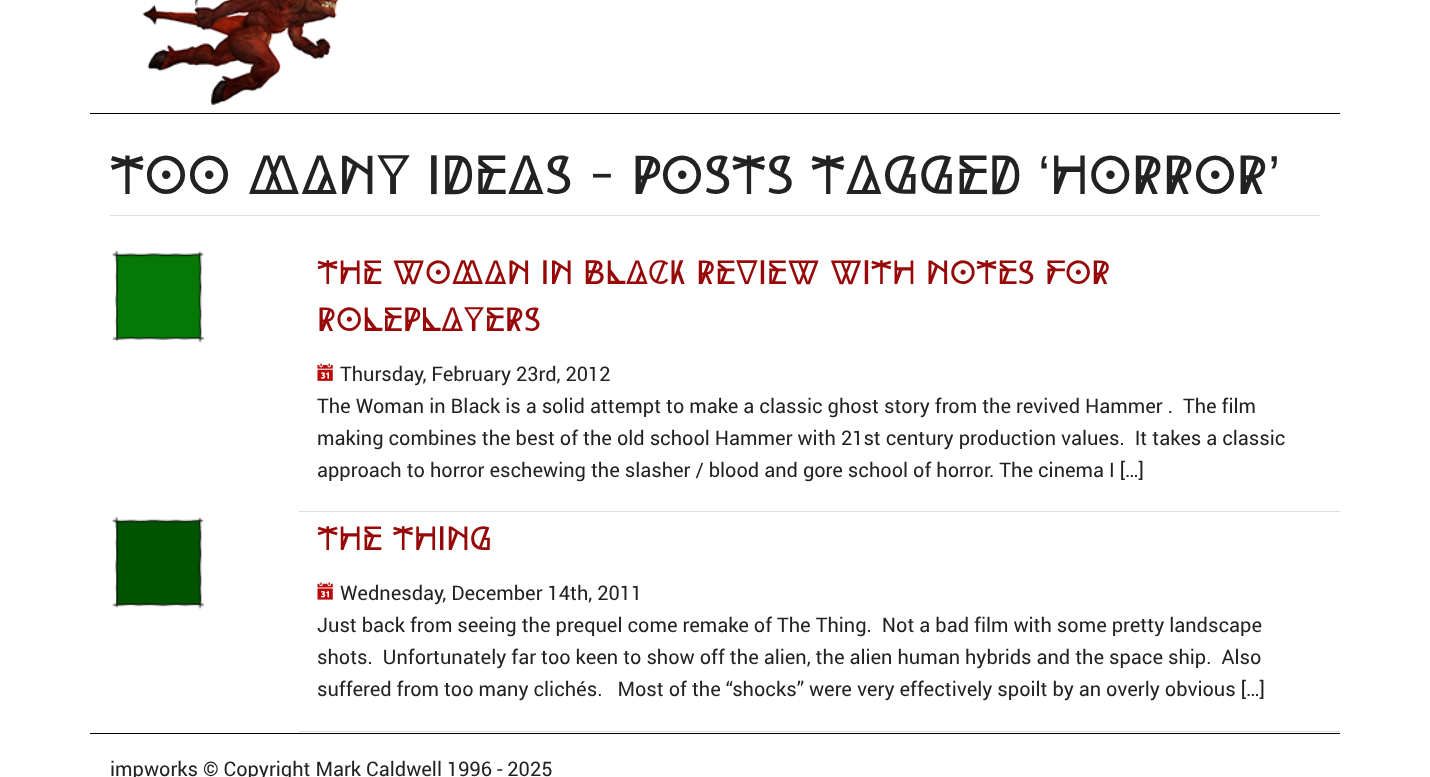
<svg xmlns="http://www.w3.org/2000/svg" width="1430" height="777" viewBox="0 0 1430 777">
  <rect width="100%" height="100%" fill="rgb(255,255,255)"/>
  <image x="142" y="0" width="197" height="105" href="pic1.png"/>
  <rect x="90" y="113" width="1250" height="1" fill="rgb(0,0,0)"/>
  <rect x="110" y="215" width="1210" height="1" fill="rgb(221,221,221)"/>
  <text x="110" y="194" font-family="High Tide" font-size="55" fill="rgb(34,34,34)">Too Many Ideas - Posts Tagged</text>
  <text x="1038" y="194" font-family="Liberation Sans" font-size="55" fill="rgb(34,34,34)">‘</text>
  <text x="1050" y="194" font-family="High Tide" font-size="55" fill="rgb(34,34,34)">horror</text>
  <text x="1268" y="194" font-family="Liberation Sans" font-size="55" fill="rgb(34,34,34)">’</text>
  <image x="112" y="251" width="92" height="92" href="pic2.png"/>
  <rect x="299" y="511" width="1041" height="1" fill="rgb(221,221,221)"/>
  <g font-family="High Tide" font-size="33.75" fill="rgb(151,8,8)">
    <text>
      <tspan x="317" y="284">The Woman in Black Review with Notes for</tspan>
      <tspan x="317" y="331">Roleplayers</tspan>
    </text>
  </g>
  <image x="317" y="363" width="16" height="18" href="pic3.png"/>
  <g font-family="roboto" font-size="20" fill="rgb(34,34,34)">
    <text x="340" y="381">Thursday, February 23rd, 2012</text>
    <text xml:space="preserve"><tspan x="317" y="413">The Woman in Black is a solid attempt to make a classic ghost story from the revived Hammer .  The film</tspan><tspan x="317" y="445">making combines the best of the old school Hammer with 21st century production values.  It takes a classic</tspan><tspan x="317" y="477">approach to horror eschewing the slasher / blood and gore school of horror. The cinema I […]</tspan></text>
  </g>
  <image x="112" y="517" width="92" height="92" href="pic4.png"/>
  <rect x="299" y="731" width="1041" height="1" fill="rgb(221,221,221)"/>
  <text x="317" y="550" font-family="High Tide" font-size="33.75" fill="rgb(151,8,8)">The Thing</text>
  <image x="317" y="582" width="16" height="18" href="pic5.png"/>
  <g font-family="roboto" font-size="20" fill="rgb(34,34,34)">
    <text x="340" y="600">Wednesday, December 14th, 2011</text>
    <text xml:space="preserve"><tspan x="317" y="632">Just back from seeing the prequel come remake of The Thing.  Not a bad film with some pretty landscape</tspan><tspan x="317" y="664">shots.  Unfortunately far too keen to show off the alien, the alien human hybrids and the space ship.  Also</tspan><tspan x="317" y="696">suffered from too many clichés.   Most of the “shocks” were very effectively spoilt by an overly obvious […]</tspan></text>
  </g>
  <rect x="90" y="733" width="1250" height="1" fill="rgb(0,0,0)"/>
  <text x="110" y="776" font-family="roboto" font-size="20" fill="rgb(34,34,34)">impworks © Copyright Mark Caldwell 1996 - 2025</text>
</svg>
